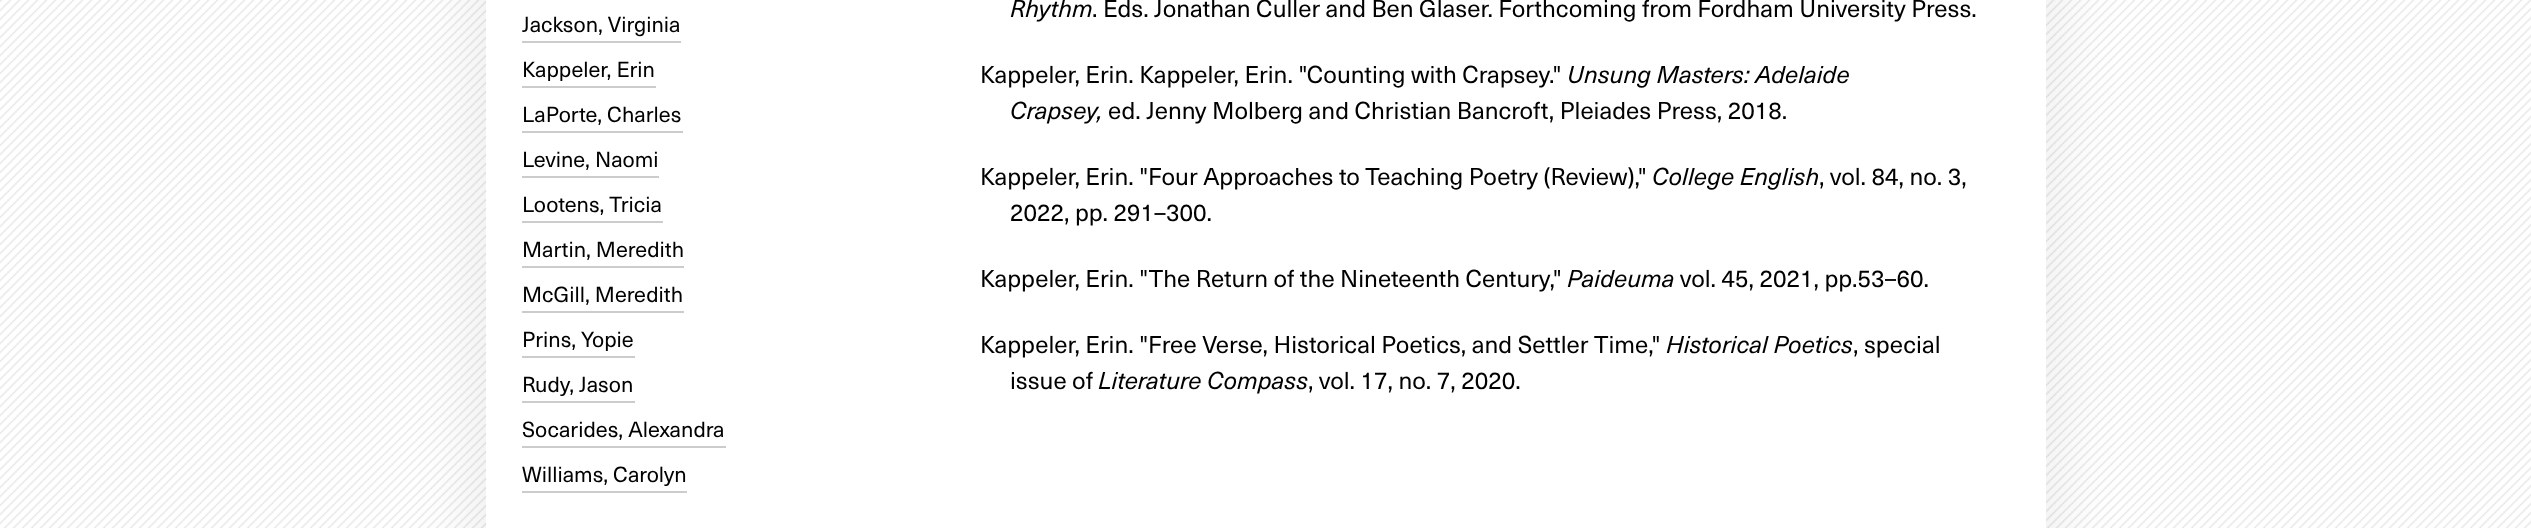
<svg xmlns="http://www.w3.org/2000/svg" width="2531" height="528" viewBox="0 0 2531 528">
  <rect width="100%" height="100%" fill="rgb(255,255,255)"/>
  <image x="0" y="0" width="2531" height="528" href="pic1.png"/>
  <rect x="471" y="-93" width="1590" height="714" fill="rgba(0,0,0,0.06)" filter="blur(31px)"/>
  <rect x="486" y="0" width="1560" height="528" fill="rgb(255,255,255)"/>
  <text x="522" y="32" font-family="'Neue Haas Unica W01'" font-size="21.5" fill="rgb(0,0,0)">Jackson, Virginia</text>
  <rect x="522" y="41" width="159" height="2" fill="rgb(204,204,204)"/>
  <text x="522" y="77" font-family="'Neue Haas Unica W01'" font-size="21.5" fill="rgb(0,0,0)">Kappeler, Erin</text>
  <rect x="522" y="86" width="134" height="2" fill="rgb(204,204,204)"/>
  <text x="522" y="122" font-family="'Neue Haas Unica W01'" font-size="21.5" fill="rgb(0,0,0)">LaPorte, Charles</text>
  <rect x="522" y="131" width="161" height="2" fill="rgb(204,204,204)"/>
  <text x="522" y="167" font-family="'Neue Haas Unica W01'" font-size="21.5" fill="rgb(0,0,0)">Levine, Naomi</text>
  <rect x="522" y="176" width="137" height="2" fill="rgb(204,204,204)"/>
  <text x="522" y="212" font-family="'Neue Haas Unica W01'" font-size="21.5" fill="rgb(0,0,0)">Lootens, Tricia</text>
  <rect x="522" y="221" width="141" height="2" fill="rgb(204,204,204)"/>
  <text x="522" y="257" font-family="'Neue Haas Unica W01'" font-size="21.5" fill="rgb(0,0,0)">Martin, Meredith</text>
  <rect x="522" y="266" width="162" height="2" fill="rgb(204,204,204)"/>
  <text x="522" y="302" font-family="'Neue Haas Unica W01'" font-size="21.5" fill="rgb(0,0,0)">McGill, Meredith</text>
  <rect x="522" y="311" width="162" height="2" fill="rgb(204,204,204)"/>
  <text x="522" y="347" font-family="'Neue Haas Unica W01'" font-size="21.5" fill="rgb(0,0,0)">Prins, Yopie</text>
  <rect x="522" y="356" width="113" height="2" fill="rgb(204,204,204)"/>
  <text x="522" y="392" font-family="'Neue Haas Unica W01'" font-size="21.5" fill="rgb(0,0,0)">Rudy, Jason</text>
  <rect x="522" y="401" width="113" height="2" fill="rgb(204,204,204)"/>
  <text x="522" y="437" font-family="'Neue Haas Unica W01'" font-size="21.5" fill="rgb(0,0,0)">Socarides, Alexandra</text>
  <rect x="522" y="446" width="204" height="2" fill="rgb(204,204,204)"/>
  <text x="522" y="482" font-family="'Neue Haas Unica W01'" font-size="21.5" fill="rgb(0,0,0)">Williams, Carolyn</text>
  <rect x="522" y="491" width="165" height="2" fill="rgb(204,204,204)"/>
  <text x="1010" y="17" font-family="'Neue Haas Unica W01'" font-size="24" font-style="italic" fill="rgb(0,0,0)">Rhythm</text>
  <g font-family="'Neue Haas Unica W01'" font-size="24" fill="rgb(0,0,0)">
    <text x="1092" y="17">. Eds. Jonathan Culler and Ben Glaser. Forthcoming from Fordham University Press.</text>
    <text x="980" y="83">Kappeler, Erin. Kappeler, Erin. "Counting with Crapsey."</text>
  </g>
  <g font-family="'Neue Haas Unica W01'" font-size="24" font-style="italic" fill="rgb(0,0,0)">
    <text x="1567" y="83">Unsung Masters: Adelaide</text>
    <text x="1010" y="119">Crapsey,</text>
  </g>
  <g font-family="'Neue Haas Unica W01'" font-size="24" fill="rgb(0,0,0)">
    <text x="1108" y="119">ed. Jenny Molberg and Christian Bancroft, Pleiades Press, 2018.</text>
    <text x="980" y="185">Kappeler, Erin. "Four Approaches to Teaching Poetry (Review),"</text>
  </g>
  <text x="1652" y="185" font-family="'Neue Haas Unica W01'" font-size="24" font-style="italic" fill="rgb(0,0,0)">College English</text>
  <g font-family="'Neue Haas Unica W01'" font-size="24" fill="rgb(0,0,0)">
    <text x="1819" y="185">, vol. 84, no. 3,</text>
    <text x="1010" y="221">2022, pp. 291–300.</text>
    <text x="980" y="287">Kappeler, Erin. "The Return of the Nineteenth Century,"</text>
  </g>
  <text x="1567" y="287" font-family="'Neue Haas Unica W01'" font-size="24" font-style="italic" fill="rgb(0,0,0)">Paideuma</text>
  <g font-family="'Neue Haas Unica W01'" font-size="24" fill="rgb(0,0,0)">
    <text x="1680" y="287">vol. 45, 2021, pp.53–60.</text>
    <text x="980" y="353">Kappeler, Erin. "Free Verse, Historical Poetics, and Settler Time,"</text>
  </g>
  <text x="1666" y="353" font-family="'Neue Haas Unica W01'" font-size="24" font-style="italic" fill="rgb(0,0,0)">Historical Poetics</text>
  <g font-family="'Neue Haas Unica W01'" font-size="24" fill="rgb(0,0,0)">
    <text x="1853" y="353">, special</text>
    <text x="1010" y="389">issue of</text>
  </g>
  <text x="1098" y="389" font-family="'Neue Haas Unica W01'" font-size="24" font-style="italic" fill="rgb(0,0,0)">Literature Compass</text>
  <text x="1308" y="389" font-family="'Neue Haas Unica W01'" font-size="24" fill="rgb(0,0,0)">, vol. 17, no. 7, 2020.</text>
</svg>
